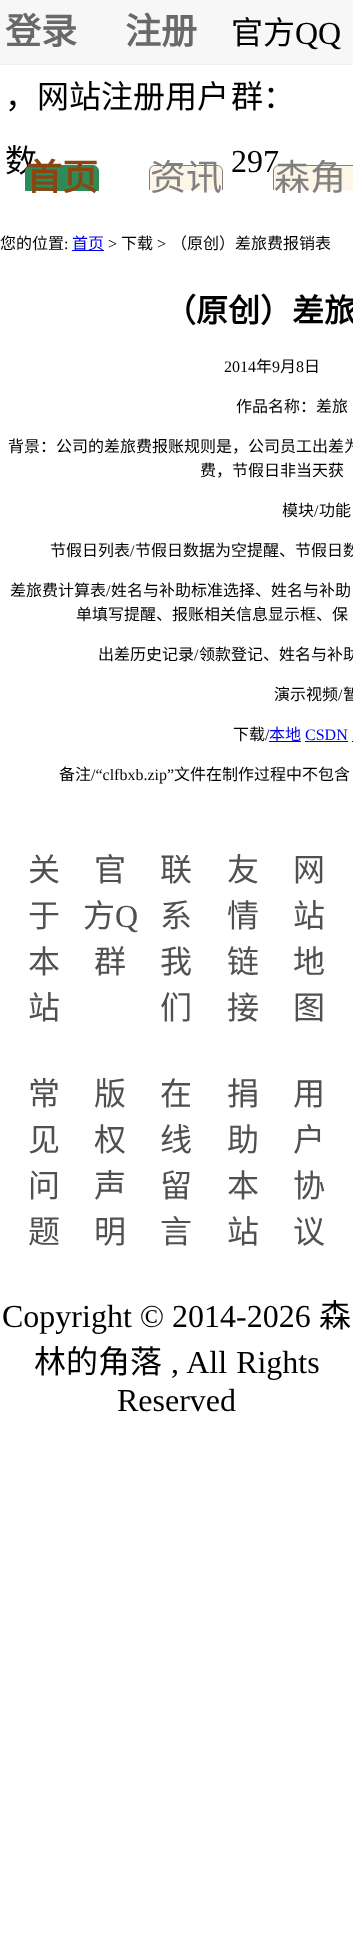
<svg xmlns="http://www.w3.org/2000/svg" width="353" height="1954" viewBox="0 0 353 1954">
  <rect width="100%" height="100%" fill="rgb(255,255,255)"/>
  <rect x="0" y="0" width="353" height="64" fill="rgb(247,247,247)"/>
  <rect x="0" y="64" width="353" height="1" fill="rgb(238,238,238)"/>
  <g font-family="Noto Sans CJK SC" font-size="36" font-weight="bold" fill="rgb(105,105,105)">
    <text x="5" y="44">登录</text>
    <text x="125" y="44">注册</text>
  </g>
  <g font-family="Noto Sans CJK SC" font-size="32" fill="rgb(0,0,0)">
    <text x="5" y="108">，网站注册用户</text>
    <text x="5" y="172">数</text>
    <text x="231" y="44">官方</text>
  </g>
  <text x="295" y="44" font-family="Liberation Serif" font-size="32" fill="rgb(0,0,0)">QQ</text>
  <text x="231" y="108" font-family="Noto Sans CJK SC" font-size="32" fill="rgb(0,0,0)">群：</text>
  <text x="231" y="172" font-family="Liberation Serif" font-size="32" fill="rgb(0,0,0)">297</text>
  <path d="M31 165.5H93C96 165.5 98.5 168 98.5 171V190.5H25.5V171C25.5 168 28 165.5 31 165.5Z" fill="rgb(46,139,87)" stroke="rgb(46,139,87)"/>
  <text x="26" y="190" font-family="Noto Sans CJK SC" font-size="36" font-weight="bold" fill="rgb(139,69,19)">首页</text>
  <path d="M155 165H217C220.5 165 223 167.5 223 171V190H149V171C149 167.5 151.5 165 155 165Z" fill="rgb(253,245,230)"/>
  <path d="M155 165H217C220 165 223 168 223 171V190H149V171C149 168 152 165 155 165ZM155 166H217C220 166 222 168 222 171V190H150V171C150 168 152 166 155 166Z" fill="rgb(128,128,128)" fill-rule="evenodd"/>
  <text x="150" y="190" font-family="Noto Sans CJK SC" font-size="36" fill="rgb(128,128,128)">资讯</text>
  <path d="M279 165H353C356.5 165 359 167.5 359 171V190H273V171C273 167.5 275.5 165 279 165Z" fill="rgb(253,245,230)"/>
  <path d="M279 165H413C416 165 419 168 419 171V190H273V171C273 168 276 165 279 165ZM279 166H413C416 166 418 168 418 171V190H274V171C274 168 276 166 279 166Z" fill="rgb(128,128,128)" fill-rule="evenodd"/>
  <text x="274" y="190" font-family="Noto Sans CJK SC" font-size="36" fill="rgb(128,128,128)">森角</text>
  <text x="0" y="249" font-family="Noto Sans CJK SC" font-size="16" fill="rgb(0,0,0)">您的位置</text>
  <text x="64" y="249" font-family="Liberation Serif" font-size="16" fill="rgb(0,0,0)">:</text>
  <rect x="72" y="250" width="32" height="1" fill="rgb(0,0,238)"/>
  <text x="72" y="249" font-family="Noto Sans CJK SC" font-size="16" fill="rgb(0,0,238)">首页</text>
  <text x="108" y="249" font-family="Liberation Serif" font-size="16" fill="rgb(0,0,0)">&gt;</text>
  <text x="121" y="249" font-family="Noto Sans CJK SC" font-size="16" fill="rgb(0,0,0)">下载</text>
  <text x="157" y="249" font-family="Liberation Serif" font-size="16" fill="rgb(0,0,0)">&gt;</text>
  <text x="171" y="249" font-family="Noto Sans CJK SC" font-size="16" fill="rgb(0,0,0)">（原创）差旅费报销表</text>
  <text x="164" y="322" font-family="Noto Sans CJK SC" font-size="32" font-weight="bold" fill="rgb(0,0,0)">（原创）差旅</text>
  <text x="224" y="372" font-family="Liberation Serif" font-size="16" fill="rgb(0,0,0)">2014</text>
  <text x="256" y="372" font-family="Noto Sans CJK SC" font-size="16" fill="rgb(0,0,0)">年</text>
  <text x="272" y="372" font-family="Liberation Serif" font-size="16" fill="rgb(0,0,0)">9</text>
  <text x="280" y="372" font-family="Noto Sans CJK SC" font-size="16" fill="rgb(0,0,0)">月</text>
  <text x="296" y="372" font-family="Liberation Serif" font-size="16" fill="rgb(0,0,0)">8</text>
  <g font-family="Noto Sans CJK SC" font-size="16" fill="rgb(0,0,0)">
    <text x="304" y="372">日</text>
    <text x="236" y="412">作品名称：差旅</text>
    <text x="8" y="452">背景：公司的差旅费报账规则是，公司员工出差为</text>
    <text x="200" y="476">费，节假日非当天获</text>
    <text x="282" y="516">模块</text>
  </g>
  <text x="314" y="516" font-family="Liberation Serif" font-size="16" fill="rgb(0,0,0)">/</text>
  <g font-family="Noto Sans CJK SC" font-size="16" fill="rgb(0,0,0)">
    <text x="319" y="516">功能</text>
    <text x="50" y="556">节假日列表</text>
  </g>
  <text x="130" y="556" font-family="Liberation Serif" font-size="16" fill="rgb(0,0,0)">/</text>
  <g font-family="Noto Sans CJK SC" font-size="16" fill="rgb(0,0,0)">
    <text x="135" y="556">节假日数据为空提醒、节假日数</text>
    <text x="10" y="596">差旅费计算表</text>
  </g>
  <text x="106" y="596" font-family="Liberation Serif" font-size="16" fill="rgb(0,0,0)">/</text>
  <g font-family="Noto Sans CJK SC" font-size="16" fill="rgb(0,0,0)">
    <text x="111" y="596">姓名与补助标准选择、姓名与补助</text>
    <text x="76" y="620">单填写提醒、报账相关信息显示框、保</text>
    <text x="98" y="660">出差历史记录</text>
  </g>
  <text x="194" y="660" font-family="Liberation Serif" font-size="16" fill="rgb(0,0,0)">/</text>
  <g font-family="Noto Sans CJK SC" font-size="16" fill="rgb(0,0,0)">
    <text x="199" y="660">领款登记、姓名与补助</text>
    <text x="274" y="700">演示视频</text>
  </g>
  <text x="338" y="700" font-family="Liberation Serif" font-size="16" fill="rgb(0,0,0)">/</text>
  <g font-family="Noto Sans CJK SC" font-size="16" fill="rgb(0,0,0)">
    <text x="343" y="700">暂</text>
    <text x="233" y="740">下载</text>
  </g>
  <text x="265" y="740" font-family="Liberation Serif" font-size="16" fill="rgb(0,0,0)">/</text>
  <rect x="269" y="741" width="32" height="1" fill="rgb(0,0,238)"/>
  <text x="269" y="740" font-family="Noto Sans CJK SC" font-size="16" fill="rgb(0,0,238)">本地</text>
  <text x="305" y="740" font-family="Liberation Serif" font-size="16" fill="rgb(0,0,238)">CSDN</text>
  <rect x="305" y="741" width="43" height="1" fill="rgb(0,0,238)"/>
  <rect x="352" y="741" width="1" height="1" fill="rgb(0,0,238)"/>
  <text x="59" y="780" font-family="Noto Sans CJK SC" font-size="16" fill="rgb(0,0,0)">备注</text>
  <text x="91" y="780" font-family="Liberation Serif" font-size="16" fill="rgb(0,0,0)">/“clfbxb.zip”</text>
  <text x="174" y="780" font-family="Noto Sans CJK SC" font-size="16" fill="rgb(0,0,0)">文件在制作过程中不包含</text>
  <g font-family="Noto Sans CJK SC" font-size="32" fill="rgb(80,80,80)">
    <text>
      <tspan x="28" y="881">关</tspan>
      <tspan x="28" y="927">于</tspan>
      <tspan x="28" y="973">本</tspan>
      <tspan x="28" y="1019">站</tspan>
    </text>
    <text x="94" y="881">官</text>
    <text x="83" y="927">方</text>
  </g>
  <text x="115" y="927" font-family="Liberation Serif" font-size="32" fill="rgb(80,80,80)">Q</text>
  <g font-family="Noto Sans CJK SC" font-size="32" fill="rgb(80,80,80)">
    <text x="94" y="973">群</text>
    <text>
      <tspan x="160" y="881">联</tspan>
      <tspan x="160" y="927">系</tspan>
      <tspan x="160" y="973">我</tspan>
      <tspan x="160" y="1019">们</tspan>
    </text>
    <text>
      <tspan x="227" y="881">友</tspan>
      <tspan x="227" y="927">情</tspan>
      <tspan x="227" y="973">链</tspan>
      <tspan x="227" y="1019">接</tspan>
    </text>
    <text>
      <tspan x="293" y="881">网</tspan>
      <tspan x="293" y="927">站</tspan>
      <tspan x="293" y="973">地</tspan>
      <tspan x="293" y="1019">图</tspan>
    </text>
    <text>
      <tspan x="28" y="1105">常</tspan>
      <tspan x="28" y="1151">见</tspan>
      <tspan x="28" y="1197">问</tspan>
      <tspan x="28" y="1243">题</tspan>
    </text>
    <text>
      <tspan x="94" y="1105">版</tspan>
      <tspan x="94" y="1151">权</tspan>
      <tspan x="94" y="1197">声</tspan>
      <tspan x="94" y="1243">明</tspan>
    </text>
    <text>
      <tspan x="160" y="1105">在</tspan>
      <tspan x="160" y="1151">线</tspan>
      <tspan x="160" y="1197">留</tspan>
      <tspan x="160" y="1243">言</tspan>
    </text>
    <text>
      <tspan x="227" y="1105">捐</tspan>
      <tspan x="227" y="1151">助</tspan>
      <tspan x="227" y="1197">本</tspan>
      <tspan x="227" y="1243">站</tspan>
    </text>
    <text>
      <tspan x="293" y="1105">用</tspan>
      <tspan x="293" y="1151">户</tspan>
      <tspan x="293" y="1197">协</tspan>
      <tspan x="293" y="1243">议</tspan>
    </text>
  </g>
  <text x="2" y="1327" font-family="Liberation Serif" font-size="32" fill="rgb(0,0,0)">Copyright © 2014-2026</text>
  <g font-family="Noto Sans CJK SC" font-size="32" fill="rgb(0,0,0)">
    <text x="319" y="1327">森</text>
    <text x="34" y="1373">林的角落</text>
  </g>
  <g font-family="Liberation Serif" font-size="32" fill="rgb(0,0,0)">
    <text x="171" y="1373" word-spacing="1">, All Rights</text>
    <text x="117" y="1411">Reserved</text>
  </g>
</svg>
